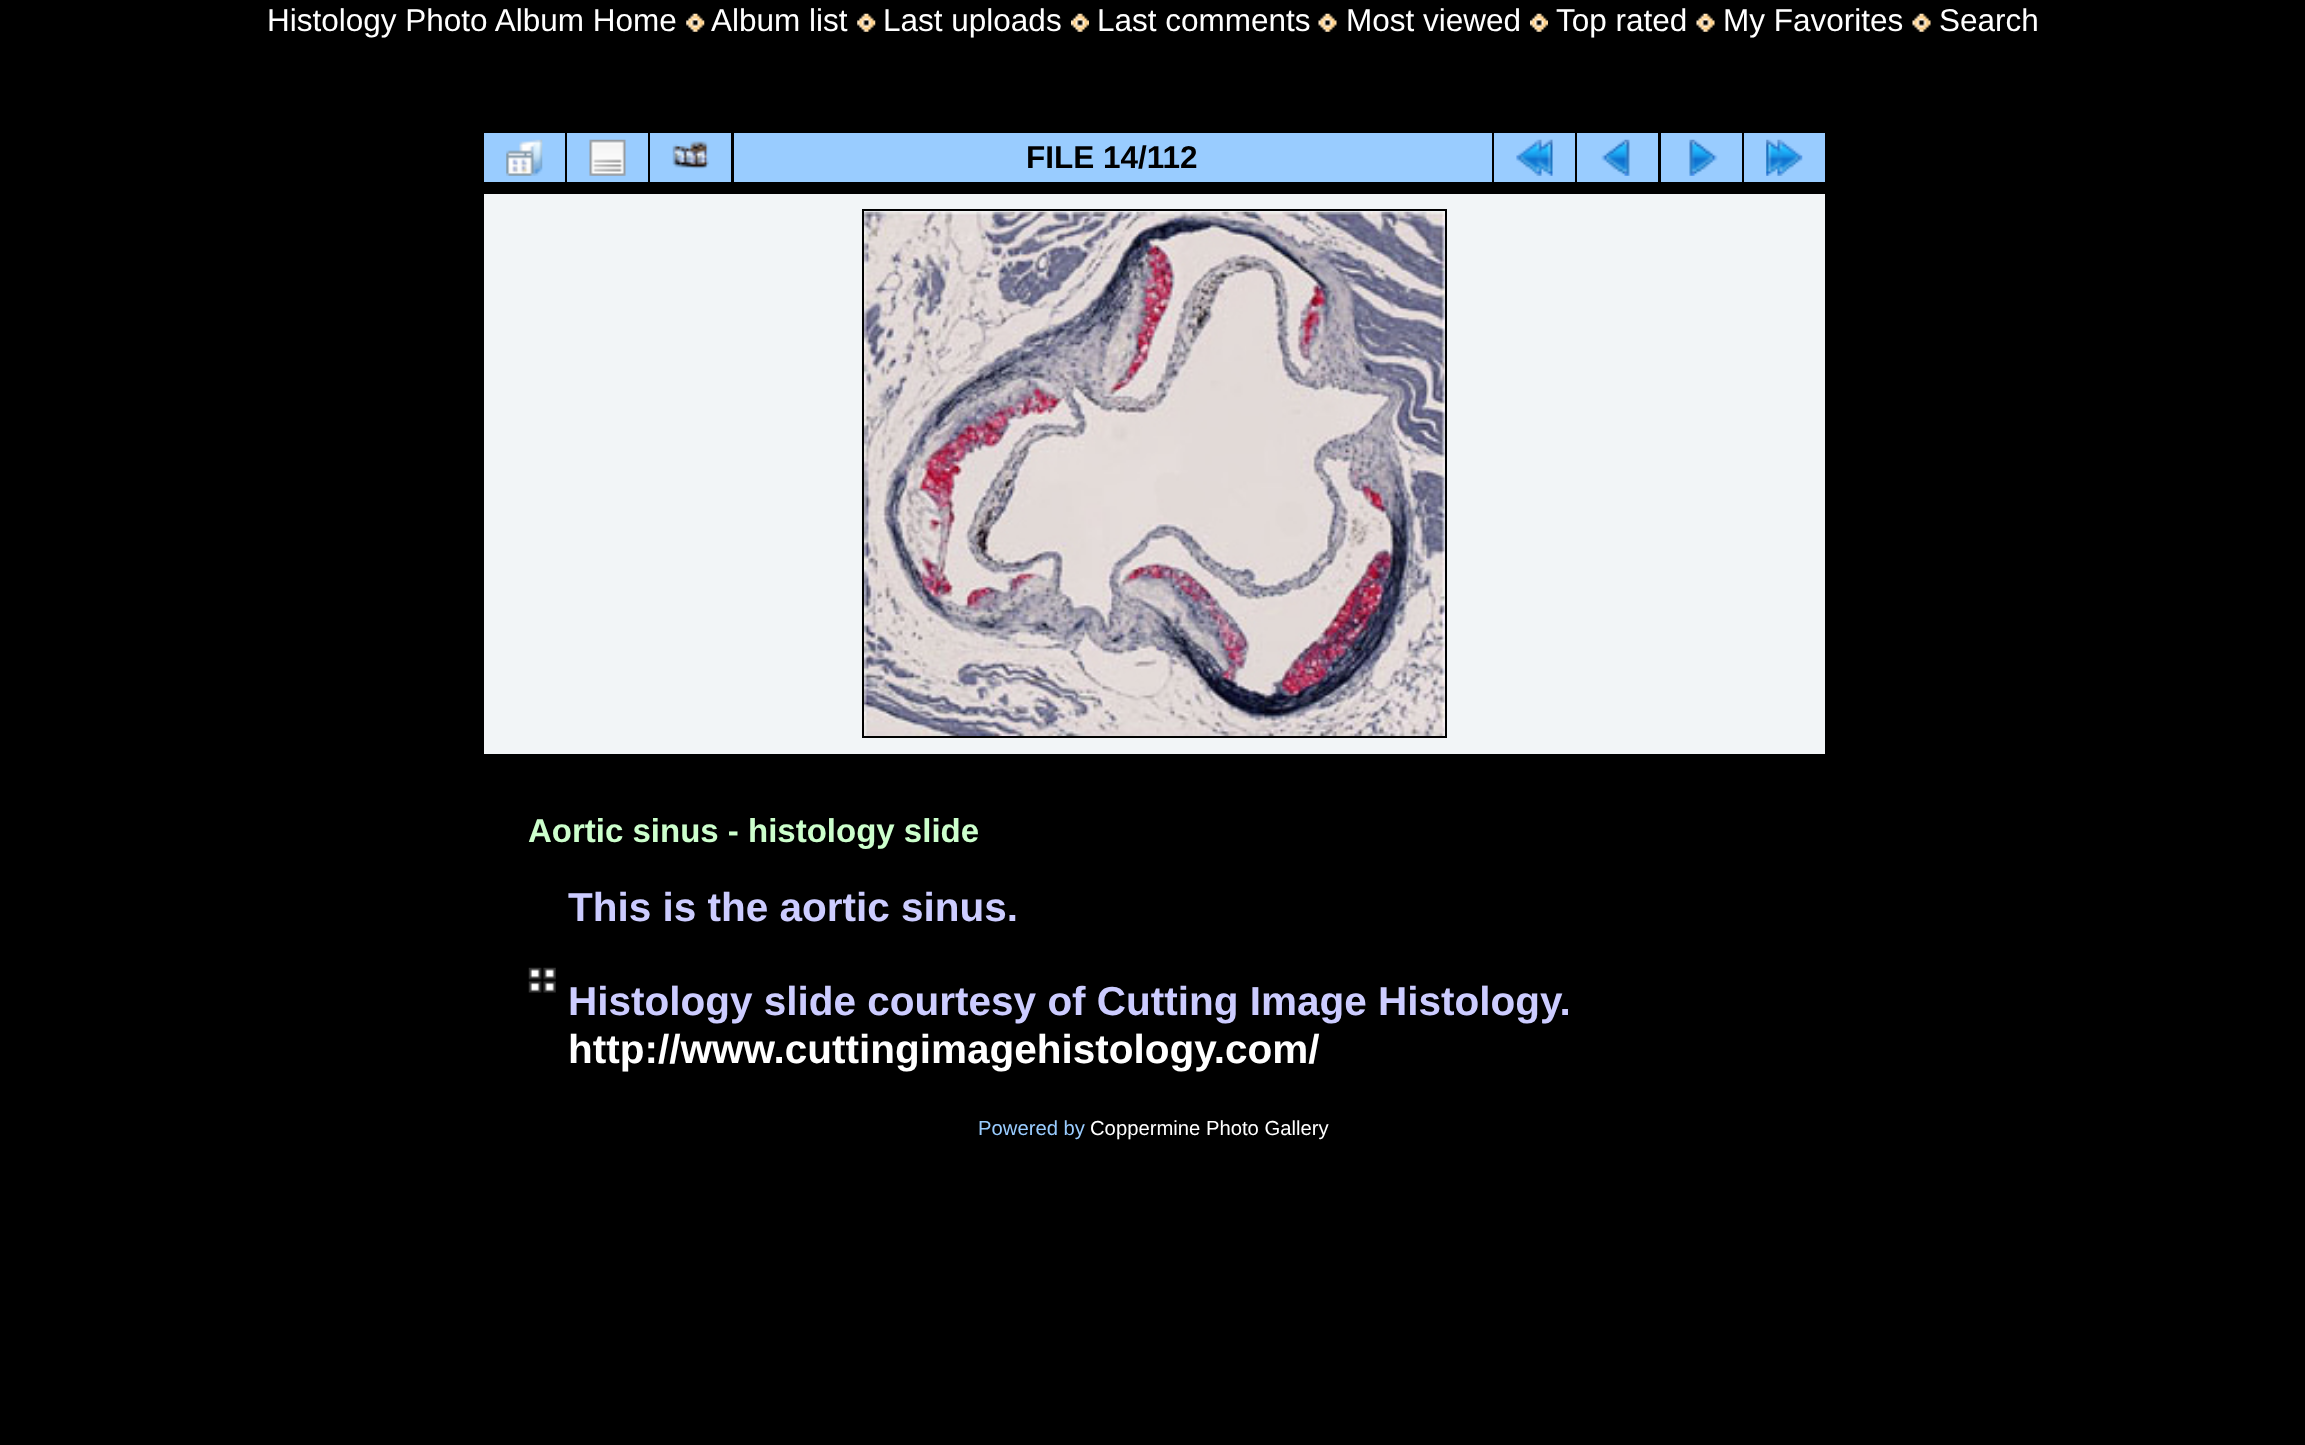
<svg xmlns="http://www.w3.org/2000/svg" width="2305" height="1445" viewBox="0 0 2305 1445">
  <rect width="100%" height="100%" fill="rgb(0,0,0)"/>
  <text x="267" y="31" font-family="Liberation Sans" font-size="31.5" fill="rgb(255,255,255)">Histology Photo Album Home</text>
  <image x="686" y="13" width="19" height="19" href="pic1.png"/>
  <text x="711" y="31" font-family="Liberation Sans" font-size="31.5" fill="rgb(255,255,255)">Album list</text>
  <image x="857" y="13" width="19" height="19" href="pic1.png"/>
  <text x="883" y="31" font-family="Liberation Sans" font-size="31.5" fill="rgb(255,255,255)">Last uploads</text>
  <image x="1071" y="13" width="18" height="19" href="pic2.png"/>
  <text x="1097" y="31" font-family="Liberation Sans" font-size="31.5" fill="rgb(255,255,255)">Last comments</text>
  <image x="1318" y="13" width="19" height="19" href="pic3.png"/>
  <text x="1346" y="31" font-family="Liberation Sans" font-size="31.5" fill="rgb(255,255,255)">Most viewed</text>
  <image x="1530" y="13" width="18" height="19" href="pic2.png"/>
  <text x="1556" y="31" font-family="Liberation Sans" font-size="31.5" fill="rgb(255,255,255)">Top rated</text>
  <image x="1696" y="13" width="19" height="19" href="pic3.png"/>
  <text x="1723" y="31" font-family="Liberation Sans" font-size="31.5" fill="rgb(255,255,255)">My Favorites</text>
  <image x="1912" y="13" width="19" height="19" href="pic4.png"/>
  <text x="1939" y="31" font-family="Liberation Sans" font-size="31.5" fill="rgb(255,255,255)">Search</text>
  <rect x="484" y="133" width="81" height="49" fill="rgb(153,204,255)"/>
  <image x="506" y="139" width="37" height="37" href="pic5.png"/>
  <rect x="567" y="133" width="81" height="49" fill="rgb(153,204,255)"/>
  <image x="589" y="139" width="37" height="37" href="pic6.png"/>
  <rect x="650" y="133" width="81" height="49" fill="rgb(153,204,255)"/>
  <image x="672" y="141" width="37" height="28" href="pic7.png"/>
  <rect x="734" y="133" width="758" height="49" fill="rgb(153,204,255)"/>
  <text x="1026" y="168" font-family="Liberation Sans" font-size="31.5" font-weight="bold" fill="rgb(0,0,0)">FILE 14/112</text>
  <rect x="1494" y="133" width="81" height="49" fill="rgb(153,204,255)"/>
  <image x="1516" y="139" width="37" height="37" href="pic8.png"/>
  <rect x="1577" y="133" width="81" height="49" fill="rgb(153,204,255)"/>
  <image x="1601" y="139" width="29" height="37" href="pic9.png"/>
  <rect x="1661" y="133" width="81" height="49" fill="rgb(153,204,255)"/>
  <image x="1689" y="139" width="29" height="37" href="pic10.png"/>
  <rect x="1744" y="133" width="81" height="49" fill="rgb(153,204,255)"/>
  <image x="1766" y="139" width="37" height="37" href="pic11.png"/>
  <rect x="484" y="194" width="1341" height="560" fill="rgb(242,245,247)"/>
  <rect x="863" y="210" width="583" height="527" fill="none" stroke="rgb(0,0,0)" stroke-width="2"/>
  <image x="864" y="211" width="581" height="525" href="pic12.png"/>
  <text x="528" y="842" font-family="Liberation Sans" font-size="33" font-weight="bold" fill="rgb(204,255,204)">Aortic sinus - histology slide</text>
  <image x="528" y="967" width="28" height="26" href="pic13.png"/>
  <g font-family="Liberation Sans" font-size="40.5" font-weight="bold" fill="rgb(204,204,255)">
    <text x="568" y="921">This is the aortic sinus.</text>
    <text x="568" y="1015">Histology slide courtesy of Cutting Image Histology.</text>
  </g>
  <text x="568" y="1063" font-family="Liberation Sans" font-size="40.5" font-weight="bold" fill="rgb(255,255,255)">http://www.cuttingimagehistology.com/</text>
  <text x="978" y="1135" font-family="Liberation Sans" font-size="20.25" fill="rgb(153,204,255)">Powered by</text>
  <text x="1090" y="1135" font-family="Liberation Sans" font-size="20.25" fill="rgb(255,255,255)">Coppermine Photo Gallery</text>
</svg>
